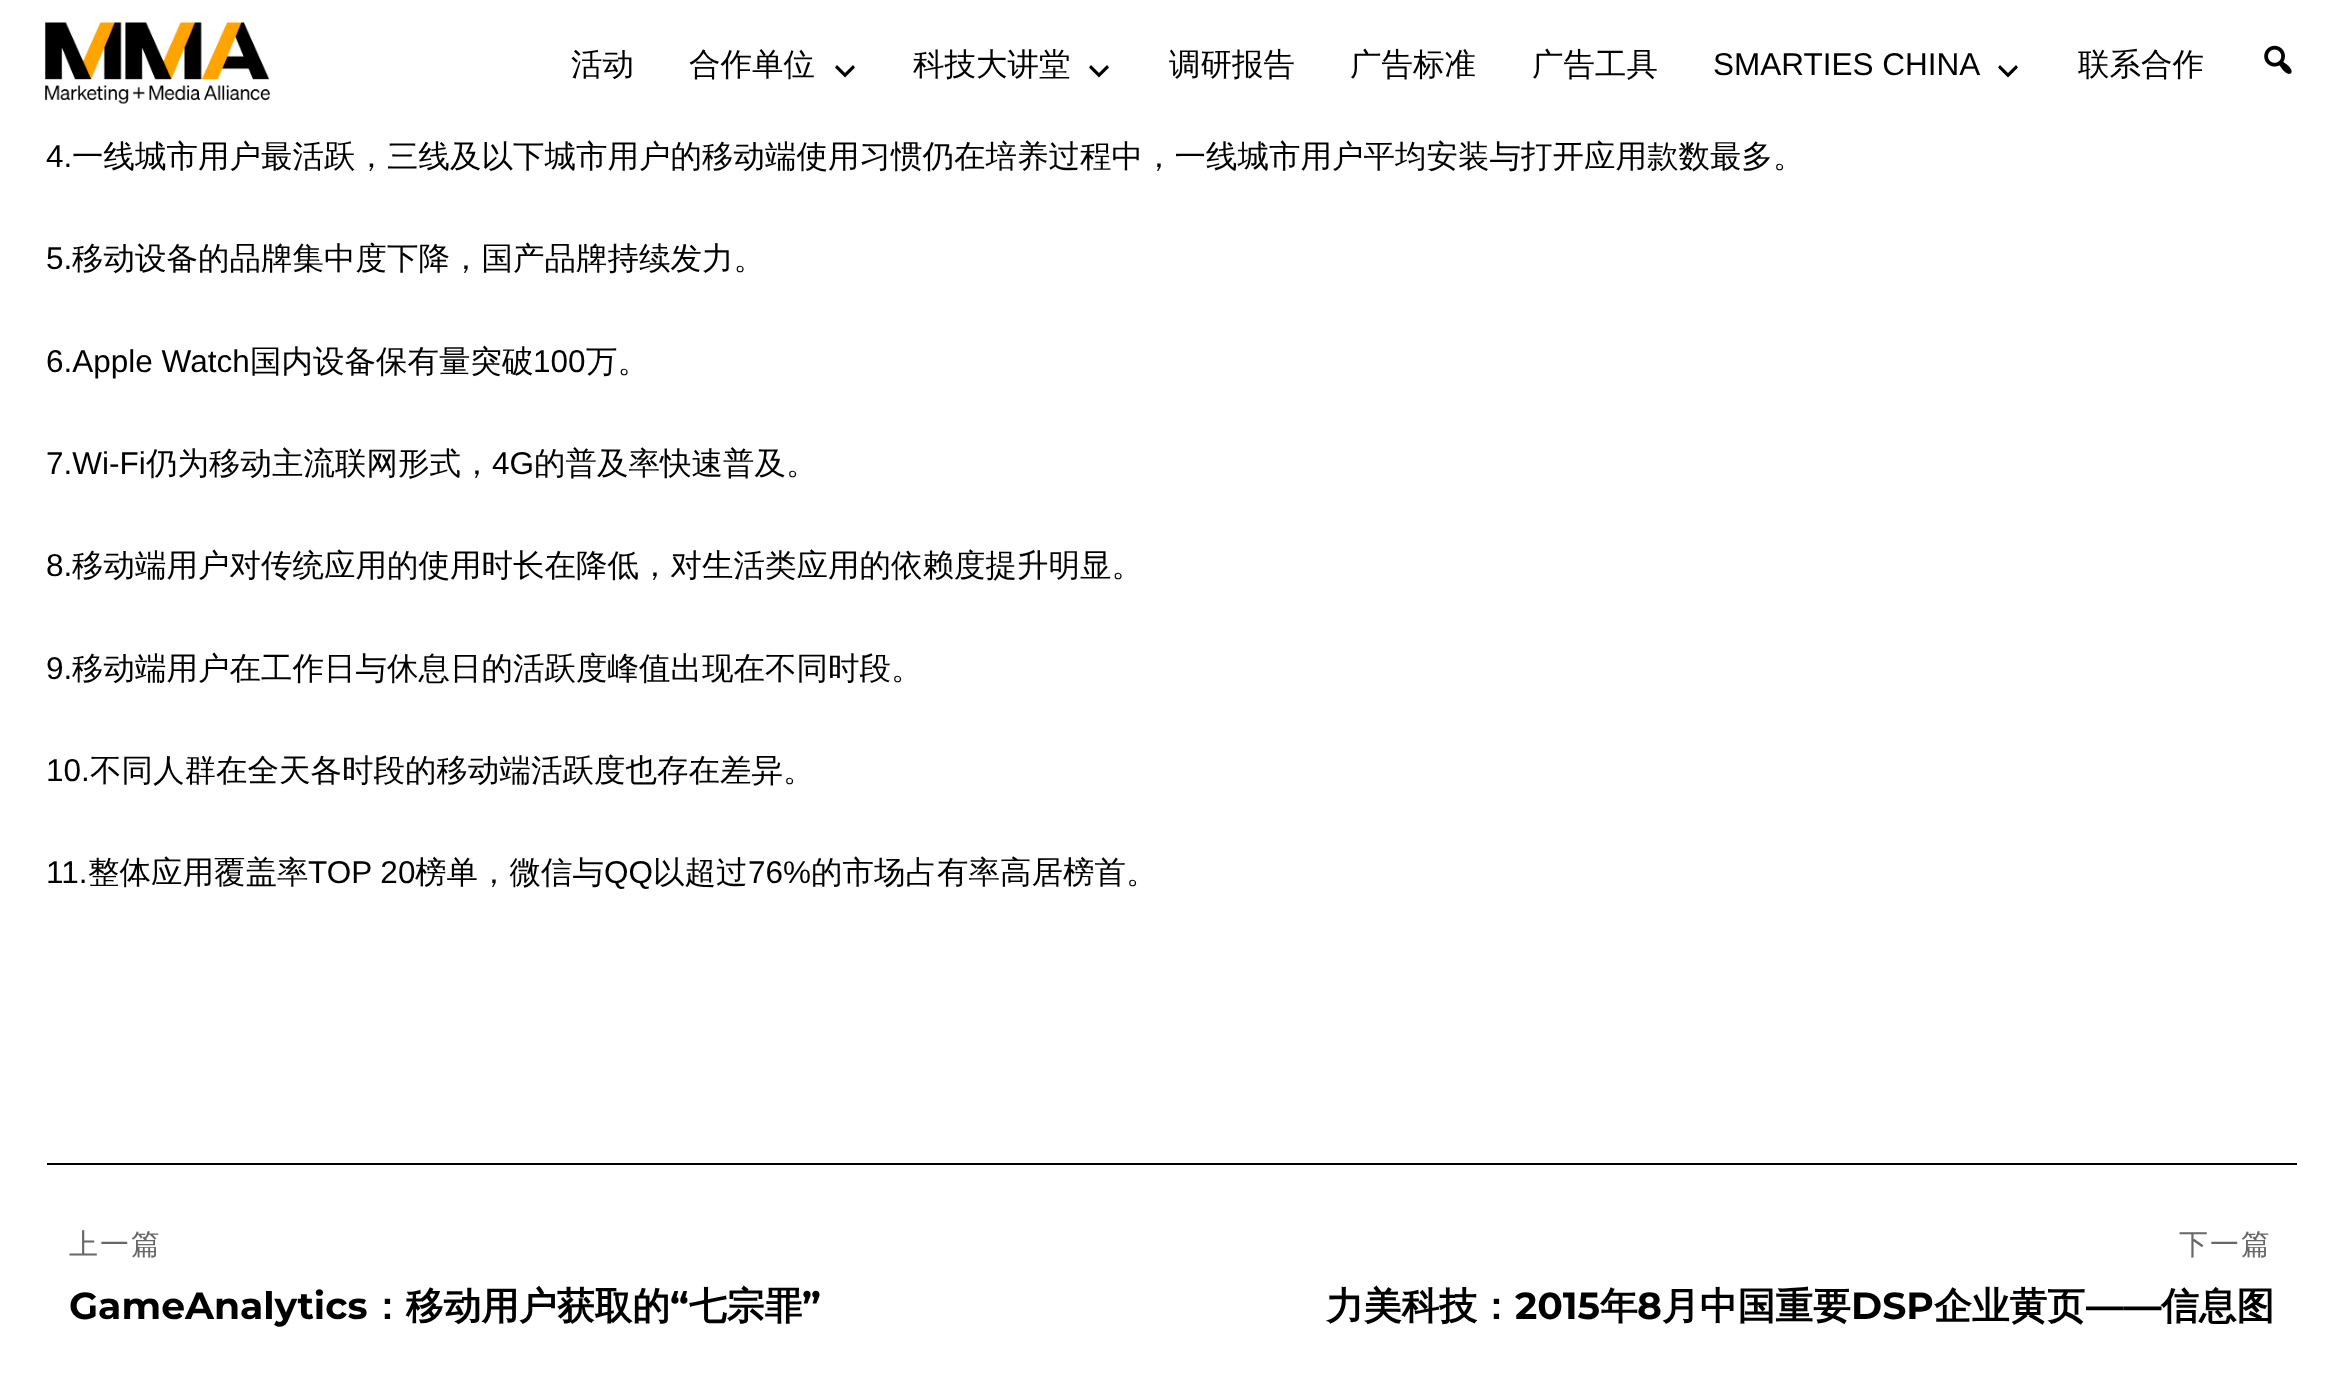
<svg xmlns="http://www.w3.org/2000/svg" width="2341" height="1388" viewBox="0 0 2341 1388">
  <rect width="100%" height="100%" fill="rgb(255,255,255)"/>
  <image x="45" y="22" width="225" height="82" href="pic1.png"/>
  <g font-family="WenQuanYi Zen Hei" font-size="31.5" font-weight="500" fill="rgb(0,0,0)">
    <text x="571" y="75">活动</text>
    <text x="689" y="75">合作单位</text>
  </g>
  <path d="M853 65L855 67.5L845 77.5L835 67.5L837 65L845 73Z" fill="rgb(0,0,0)"/>
  <text x="913" y="75" font-family="WenQuanYi Zen Hei" font-size="31.5" font-weight="500" fill="rgb(0,0,0)">科技大讲堂</text>
  <path d="M1107 65L1109 67.5L1099 77.5L1089 67.5L1091 65L1099 73Z" fill="rgb(0,0,0)"/>
  <g font-family="WenQuanYi Zen Hei" font-size="31.5" font-weight="500" fill="rgb(0,0,0)">
    <text x="1169" y="75">调研报告</text>
    <text x="1350" y="75">广告标准</text>
    <text x="1532" y="75">广告工具</text>
  </g>
  <text x="1713" y="75" font-family="Liberation Sans" font-size="31.5" fill="rgb(0,0,0)">SMARTIES CHINA</text>
  <path d="M2016 65L2018 67.5L2008 77.5L1998 67.5L2000 65L2008 73Z" fill="rgb(0,0,0)"/>
  <text x="2078" y="75" font-family="WenQuanYi Zen Hei" font-size="31.5" font-weight="500" fill="rgb(0,0,0)">联系合作</text>
  <image x="2264" y="45" width="28" height="29" href="pic2.png"/>
  <text x="46" y="167" font-family="Liberation Sans" font-size="31.5" fill="rgb(0,0,0)">4.</text>
  <text x="72" y="167" font-family="WenQuanYi Zen Hei" font-size="31.5" font-weight="500" fill="rgb(0,0,0)">一线城市用户最活跃，三线及以下城市用户的移动端使用习惯仍在培养过程中，一线城市用户平均安装与打开应用款数最多。</text>
  <text x="46" y="269" font-family="Liberation Sans" font-size="31.5" fill="rgb(0,0,0)">5.</text>
  <text x="72" y="269" font-family="WenQuanYi Zen Hei" font-size="31.5" font-weight="500" fill="rgb(0,0,0)">移动设备的品牌集中度下降，国产品牌持续发力。</text>
  <text x="46" y="372" font-family="Liberation Sans" font-size="31.5" fill="rgb(0,0,0)">6.Apple Watch</text>
  <text x="250" y="372" font-family="WenQuanYi Zen Hei" font-size="31.5" font-weight="500" fill="rgb(0,0,0)">国内设备保有量突破</text>
  <text x="533" y="372" font-family="Liberation Sans" font-size="31.5" fill="rgb(0,0,0)">100</text>
  <text x="586" y="372" font-family="WenQuanYi Zen Hei" font-size="31.5" font-weight="500" fill="rgb(0,0,0)">万。</text>
  <text x="46" y="474" font-family="Liberation Sans" font-size="31.5" fill="rgb(0,0,0)">7.Wi-Fi</text>
  <text x="146" y="474" font-family="WenQuanYi Zen Hei" font-size="31.5" font-weight="500" fill="rgb(0,0,0)">仍为移动主流联网形式，</text>
  <text x="492" y="474" font-family="Liberation Sans" font-size="31.5" fill="rgb(0,0,0)">4G</text>
  <text x="534" y="474" font-family="WenQuanYi Zen Hei" font-size="31.5" font-weight="500" fill="rgb(0,0,0)">的普及率快速普及。</text>
  <text x="46" y="576" font-family="Liberation Sans" font-size="31.5" fill="rgb(0,0,0)">8.</text>
  <text x="72" y="576" font-family="WenQuanYi Zen Hei" font-size="31.5" font-weight="500" fill="rgb(0,0,0)">移动端用户对传统应用的使用时长在降低，对生活类应用的依赖度提升明显。</text>
  <text x="46" y="679" font-family="Liberation Sans" font-size="31.5" fill="rgb(0,0,0)">9.</text>
  <text x="72" y="679" font-family="WenQuanYi Zen Hei" font-size="31.5" font-weight="500" fill="rgb(0,0,0)">移动端用户在工作日与休息日的活跃度峰值出现在不同时段。</text>
  <text x="46" y="781" font-family="Liberation Sans" font-size="31.5" fill="rgb(0,0,0)">10.</text>
  <text x="90" y="781" font-family="WenQuanYi Zen Hei" font-size="31.5" font-weight="500" fill="rgb(0,0,0)">不同人群在全天各时段的移动端活跃度也存在差异。</text>
  <text x="46" y="883" font-family="Liberation Sans" font-size="31.5" fill="rgb(0,0,0)">11.</text>
  <text x="88" y="883" font-family="WenQuanYi Zen Hei" font-size="31.5" font-weight="500" fill="rgb(0,0,0)">整体应用覆盖率</text>
  <text x="308" y="883" font-family="Liberation Sans" font-size="31.5" fill="rgb(0,0,0)">TOP 20</text>
  <text x="415" y="883" font-family="WenQuanYi Zen Hei" font-size="31.5" font-weight="500" fill="rgb(0,0,0)">榜单，微信与</text>
  <text x="604" y="883" font-family="Liberation Sans" font-size="31.5" fill="rgb(0,0,0)">QQ</text>
  <text x="653" y="883" font-family="WenQuanYi Zen Hei" font-size="31.5" font-weight="500" fill="rgb(0,0,0)">以超过</text>
  <text x="748" y="883" font-family="Liberation Sans" font-size="31.5" fill="rgb(0,0,0)">76%</text>
  <text x="811" y="883" font-family="WenQuanYi Zen Hei" font-size="31.5" font-weight="500" fill="rgb(0,0,0)">的市场占有率高居榜首。</text>
  <rect x="47" y="1163" width="2250" height="2" fill="rgb(0,0,0)"/>
  <text x="69" y="1254" font-family="WenQuanYi Zen Hei" font-size="29" font-weight="500" letter-spacing="2" fill="rgb(104,104,104)">上一篇</text>
  <text x="69" y="1319" font-family="Montserrat" font-size="37.75" font-weight="bold" fill="rgb(0,0,0)">GameAnalytics</text>
  <text x="368" y="1319" font-family="WenQuanYi Zen Hei" font-size="37.75" font-weight="bold" fill="rgb(0,0,0)">：移动用户获取的</text>
  <text x="670" y="1319" font-family="Montserrat" font-size="37.75" font-weight="bold" fill="rgb(0,0,0)">“</text>
  <text x="689" y="1319" font-family="WenQuanYi Zen Hei" font-size="37.75" font-weight="bold" fill="rgb(0,0,0)">七宗罪</text>
  <text x="802" y="1319" font-family="Montserrat" font-size="37.75" font-weight="bold" fill="rgb(0,0,0)">”</text>
  <text x="2179" y="1254" font-family="WenQuanYi Zen Hei" font-size="29" font-weight="500" letter-spacing="2" fill="rgb(104,104,104)">下一篇</text>
  <text x="1326" y="1319" font-family="WenQuanYi Zen Hei" font-size="37.75" font-weight="bold" fill="rgb(0,0,0)">力美科技：</text>
  <text x="1515" y="1319" font-family="Montserrat" font-size="37.75" font-weight="bold" fill="rgb(0,0,0)">2015</text>
  <text x="1600" y="1319" font-family="WenQuanYi Zen Hei" font-size="37.75" font-weight="bold" fill="rgb(0,0,0)">年</text>
  <text x="1637" y="1319" font-family="Montserrat" font-size="37.75" font-weight="bold" fill="rgb(0,0,0)">8</text>
  <text x="1662" y="1319" font-family="WenQuanYi Zen Hei" font-size="37.75" font-weight="bold" fill="rgb(0,0,0)">月中国重要</text>
  <text x="1851" y="1319" font-family="Montserrat" font-size="37.75" font-weight="bold" fill="rgb(0,0,0)">DSP</text>
  <text x="1934" y="1319" font-family="WenQuanYi Zen Hei" font-size="37.75" font-weight="bold" fill="rgb(0,0,0)">企业黄页</text>
  <text x="2086" y="1319" font-family="Montserrat" font-size="37.75" font-weight="bold" fill="rgb(0,0,0)">——</text>
  <text x="2161" y="1319" font-family="WenQuanYi Zen Hei" font-size="37.75" font-weight="bold" fill="rgb(0,0,0)">信息图</text>
</svg>
